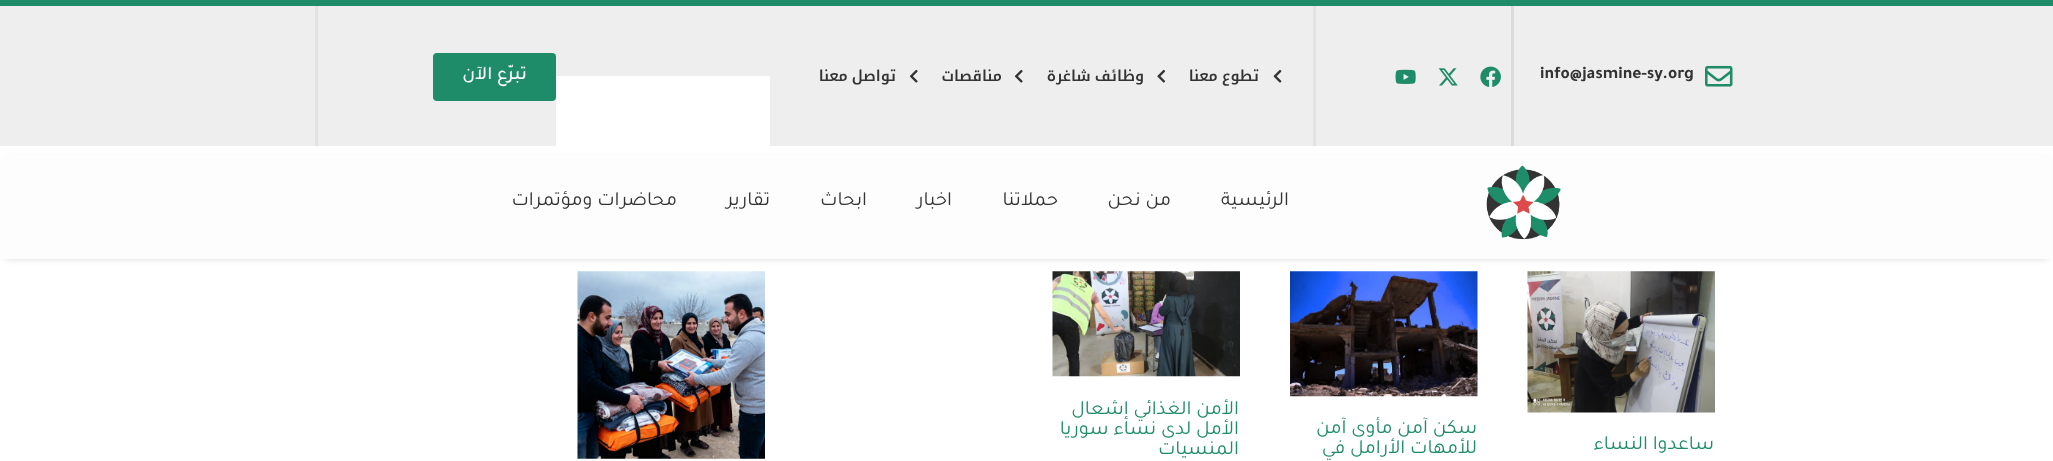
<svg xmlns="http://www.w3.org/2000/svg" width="2053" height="461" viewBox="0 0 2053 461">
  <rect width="100%" height="100%" fill="rgb(255,255,255)"/>
  <rect x="0" y="6" width="2053" height="140" fill="rgb(239,238,238)"/>
  <rect x="0" y="0" width="2053" height="6" fill="rgb(31,140,105)"/>
  <rect x="1511" y="6" width="3" height="140" fill="rgb(221,220,219)"/>
  <image x="1705" y="65" width="28" height="22" href="pic1.png"/>
  <text x="1540" y="78" font-family="Tajawal" font-size="17.5" font-weight="bold" fill="rgb(51,51,51)">info@jasmine-sy.org</text>
  <rect x="1313" y="6" width="3" height="140" fill="rgb(227,227,226)"/>
  <image x="1480" y="66" width="21" height="21" href="pic2.png"/>
  <image x="1438" y="68" width="20" height="18" href="pic3.png"/>
  <image x="1395" y="69" width="21" height="15" href="pic4.png"/>
  <image x="1273" y="69" width="9" height="14" href="pic5.png"/>
  <text x="1259" y="81" word-spacing="-1" font-family="Noto Kufi Arabic" font-size="15" font-weight="600" direction="rtl" fill="rgb(51,51,51)">تطوع معنا</text>
  <image x="1157" y="69" width="9" height="14" href="pic6.png"/>
  <text x="1144" y="81" word-spacing="-1" font-family="Noto Kufi Arabic" font-size="15" font-weight="600" direction="rtl" fill="rgb(51,51,51)">وظائف شاغرة</text>
  <image x="1014" y="69" width="9" height="14" href="pic7.png"/>
  <text x="1002" y="81" font-family="Noto Kufi Arabic" font-size="15" font-weight="600" direction="rtl" fill="rgb(51,51,51)">مناقصات</text>
  <image x="909" y="69" width="9" height="14" href="pic7.png"/>
  <text x="896" y="81" word-spacing="-1" font-family="Noto Kufi Arabic" font-size="15" font-weight="600" direction="rtl" fill="rgb(51,51,51)">تواصل معنا</text>
  <rect x="556" y="76" width="214" height="70" fill="rgb(255,255,255)"/>
  <rect x="315" y="6" width="3" height="140" fill="rgb(227,227,226)"/>
  <rect x="433" y="53" width="123" height="48" rx="4" fill="rgb(31,140,105)"/>
  <text x="527" y="79" font-family="Tajawal" font-size="19" font-weight="500" direction="rtl" fill="rgb(255,255,255)">تبرّع الآن</text>
  <rect x="6" y="159" width="2042" height="100" fill="rgba(0,0,0,0.15)" filter="blur(3px)"/>
  <rect x="2" y="155" width="2050" height="104" fill="rgb(253,253,253)"/>
  <image x="1486" y="165" width="75" height="75" href="pic8.png"/>
  <g font-family="Tajawal" font-size="20" direction="rtl" fill="rgb(51,51,51)">
    <text x="1289" y="205">الرئيسية</text>
    <text x="1171" y="205">من نحن</text>
    <text x="1058" y="205">حملاتنا</text>
    <text x="952" y="205">اخبار</text>
    <text x="867" y="205">ابحاث</text>
    <text x="770" y="205">تقارير</text>
    <text x="677" y="205">محاضرات ومؤتمرات</text>
  </g>
  <image x="1527" y="271" width="188" height="142" href="pic9.png"/>
  <text x="1714" y="449" font-family="Tajawal" font-size="20" direction="rtl" fill="rgb(31,140,105)">ساعدوا النساء</text>
  <image x="1290" y="271" width="188" height="126" href="pic10.png"/>
  <g font-family="Tajawal" font-size="20" direction="rtl" fill="rgb(31,140,105)">
    <text>
      <tspan x="1477" y="433">سكن آمن مأوى آمن</tspan>
      <tspan x="1477" y="453">للأمهات الأرامل في</tspan>
    </text>
  </g>
  <image x="1052" y="271" width="188" height="106" href="pic11.png"/>
  <g font-family="Tajawal" font-size="20" direction="rtl" fill="rgb(31,140,105)">
    <text>
      <tspan x="1239" y="414">الأمن الغذائي إشعال</tspan>
      <tspan x="1239" y="434">الأمل لدى نساء سوريا</tspan>
      <tspan x="1239" y="454">المنسيات</tspan>
    </text>
  </g>
  <image x="577" y="271" width="188" height="188" href="pic12.png"/>
</svg>
